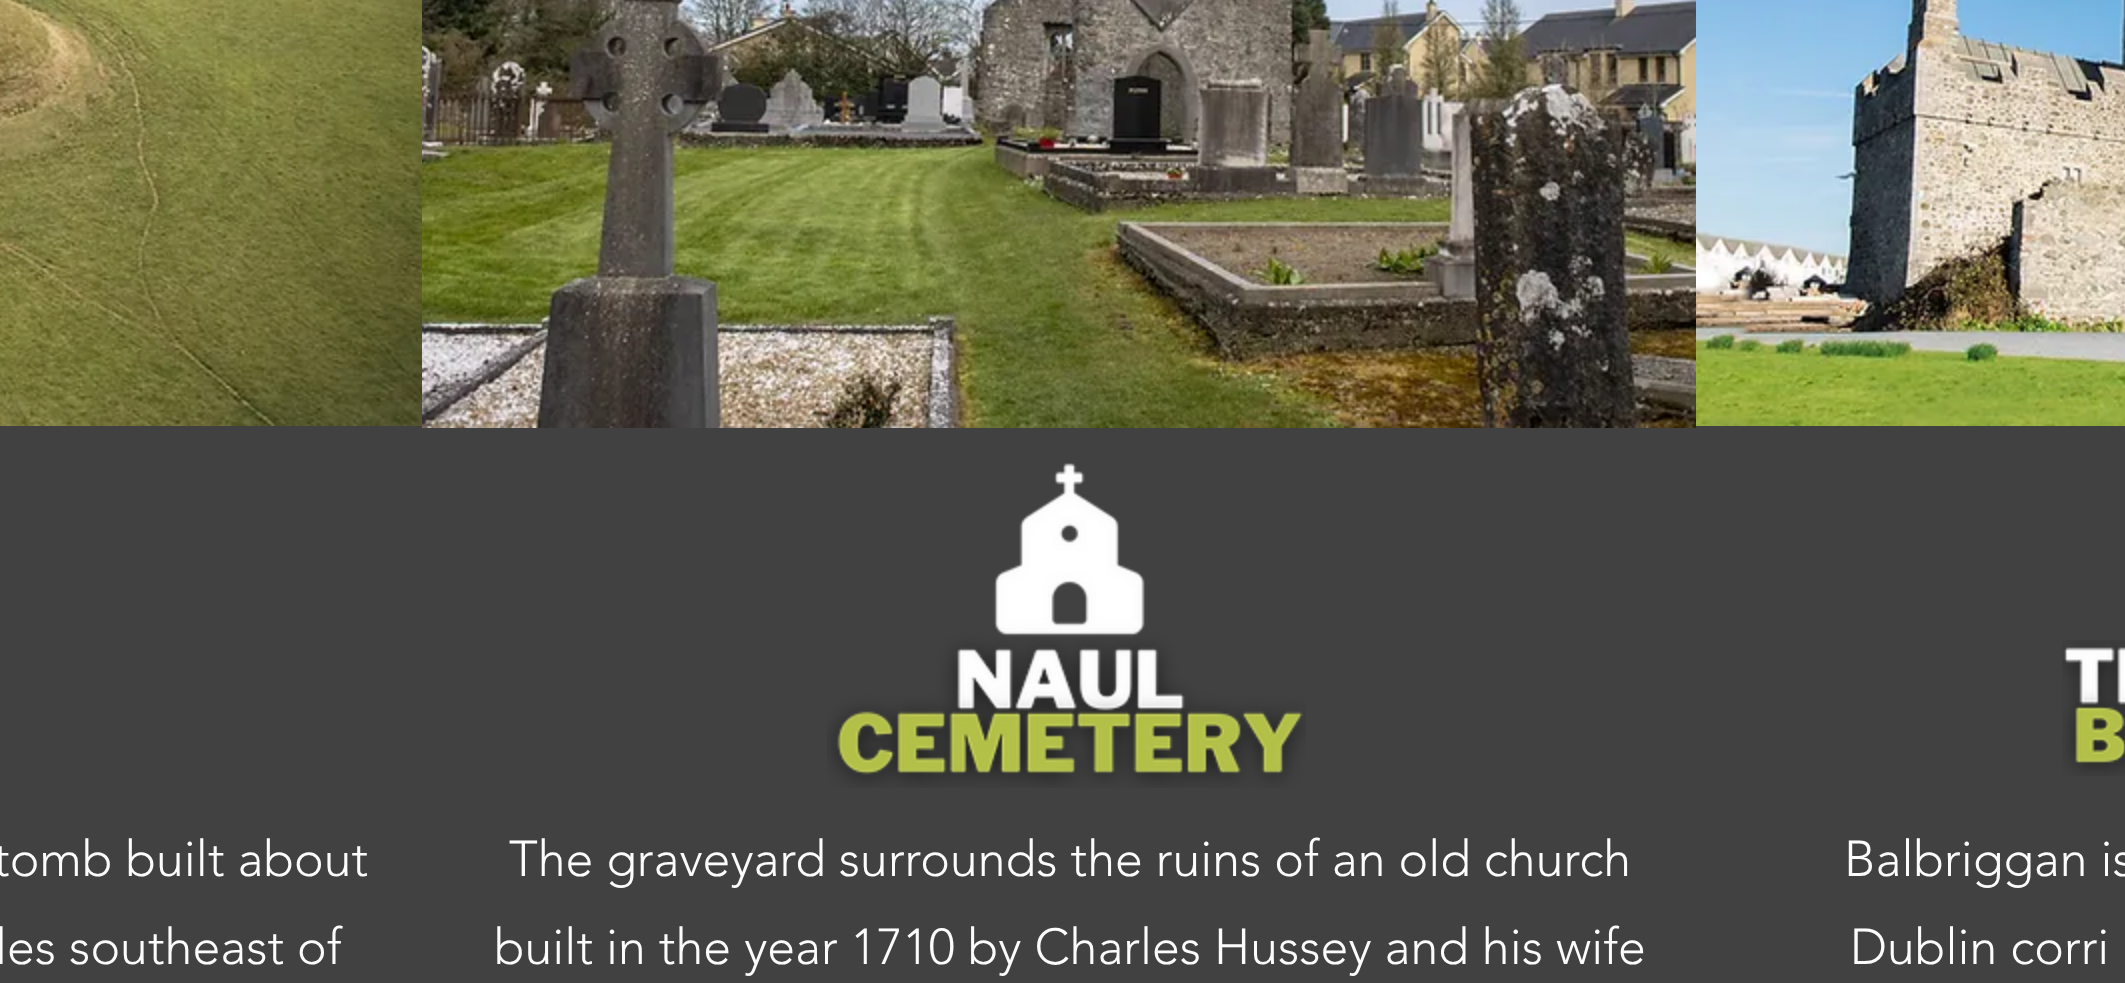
<svg xmlns="http://www.w3.org/2000/svg" width="2125" height="983" viewBox="0 0 2125 983">
  <rect width="100%" height="100%" fill="rgb(65,65,65)"/>
  <image x="0" y="0" width="422" height="426" href="pic1.png"/>
  <image x="422" y="0" width="1274" height="428" href="pic2.png"/>
  <image x="1696" y="0" width="429" height="426" href="pic3.png"/>
  <image x="827" y="463" width="479" height="325" href="pic4.png"/>
  <image x="2062" y="640" width="63" height="136" href="pic5.png"/>
  <g font-family="'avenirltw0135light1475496'" font-size="50" font-weight="300" fill="rgb(252,252,252)">
    <text x="-7" y="876">tomb built about</text>
    <text x="-5" y="964">les southeast of</text>
    <text x="509" y="876">The graveyard surrounds the ruins of an old church</text>
    <text x="494" y="964">built in the year 1710 by Charles Hussey and his wife</text>
    <text x="1844" y="876">Balbriggan is</text>
    <text x="1850" y="964">Dublin corri</text>
  </g>
</svg>
